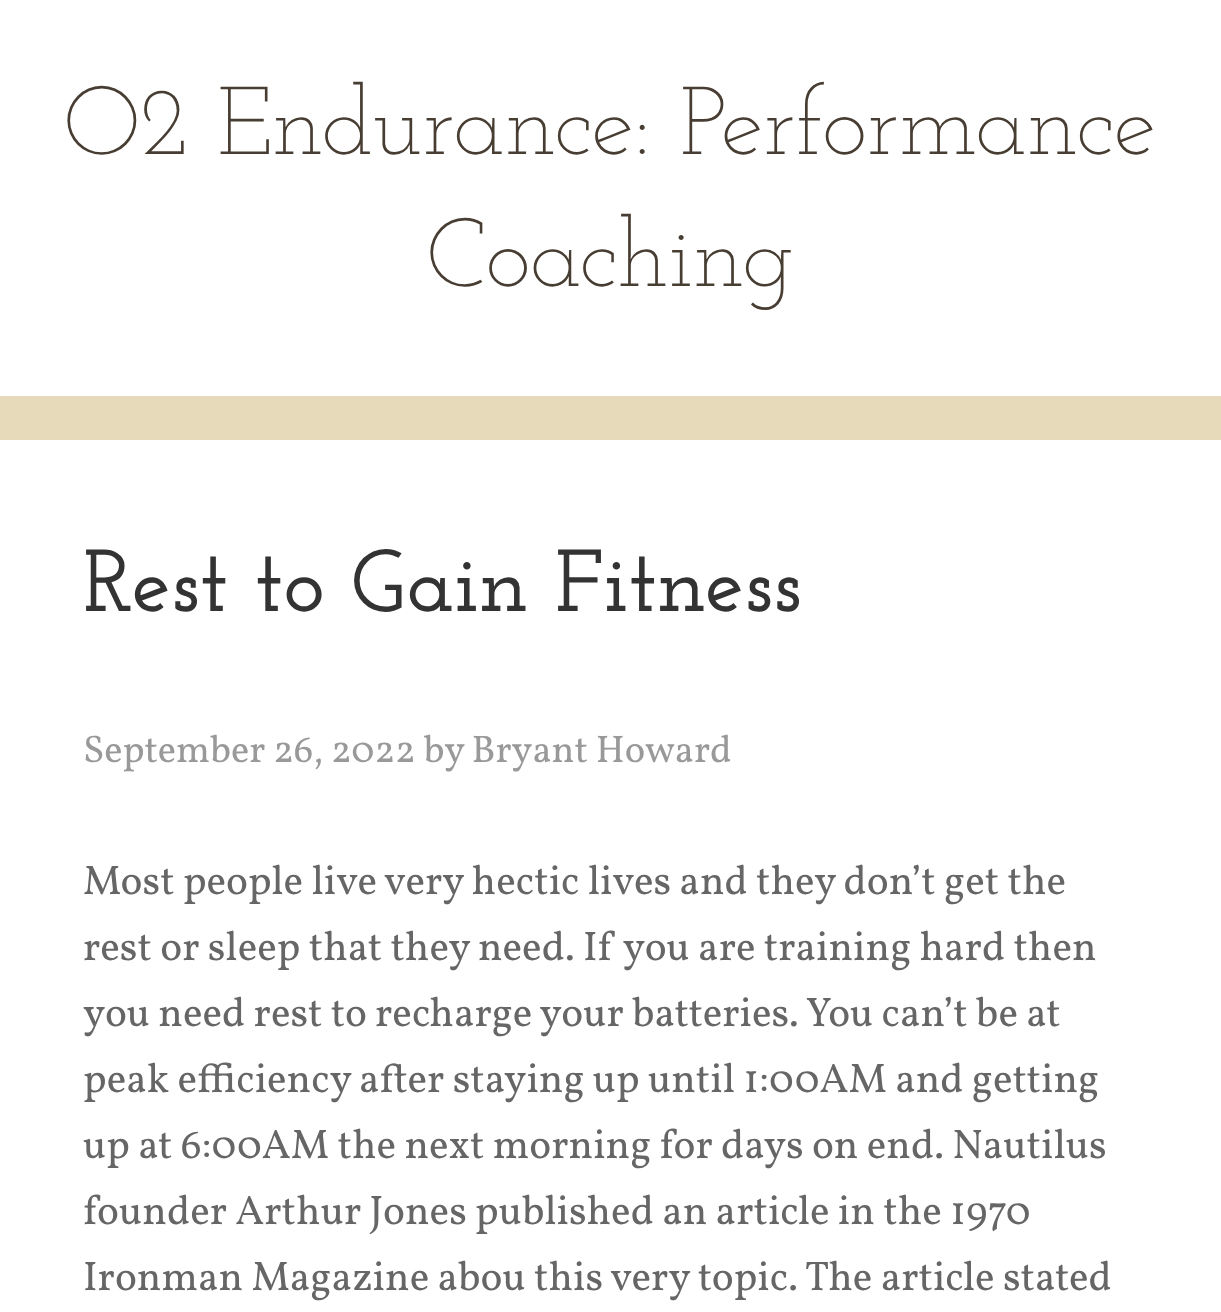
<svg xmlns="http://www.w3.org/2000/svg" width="1221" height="1312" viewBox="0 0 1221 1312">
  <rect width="100%" height="100%" fill="rgb(230,218,187)"/>
  <rect x="0" y="0" width="1221" height="396" fill="rgb(255,255,255)"/>
  <g font-family="Josefin Slab" font-size="96.25" font-weight="300" fill="rgb(71,61,50)">
    <text x="64" y="154">O2 Endurance: Performance</text>
    <text x="427" y="286">Coaching</text>
  </g>
  <rect x="0" y="440" width="1221" height="872" fill="rgb(255,255,255)"/>
  <text x="83" y="611" font-family="Josefin Slab" font-size="88" font-weight="600" fill="rgb(51,51,51)">Rest to Gain Fitness</text>
  <text x="83" y="762" font-family="Vollkorn" font-size="38.5" fill="rgb(153,153,153)">September 26, 2022 by Bryant Howard</text>
  <g font-family="Vollkorn" font-size="41.25" fill="rgb(102,102,102)">
    <text>
      <tspan x="83" y="894">Most people live very hectic lives and they don’t get the</tspan>
      <tspan x="83" y="960">rest or sleep that they need. If you are training hard then</tspan>
      <tspan x="83" y="1026">you need rest to recharge your batteries. You can’t be at</tspan>
      <tspan x="83" y="1092">peak efficiency after staying up until 1:00AM and getting</tspan>
      <tspan x="83" y="1158">up at 6:00AM the next morning for days on end. Nautilus</tspan>
      <tspan x="83" y="1224">founder Arthur Jones published an article in the 1970</tspan>
      <tspan x="83" y="1290">Ironman Magazine abou this very topic. The article stated</tspan>
    </text>
  </g>
</svg>
